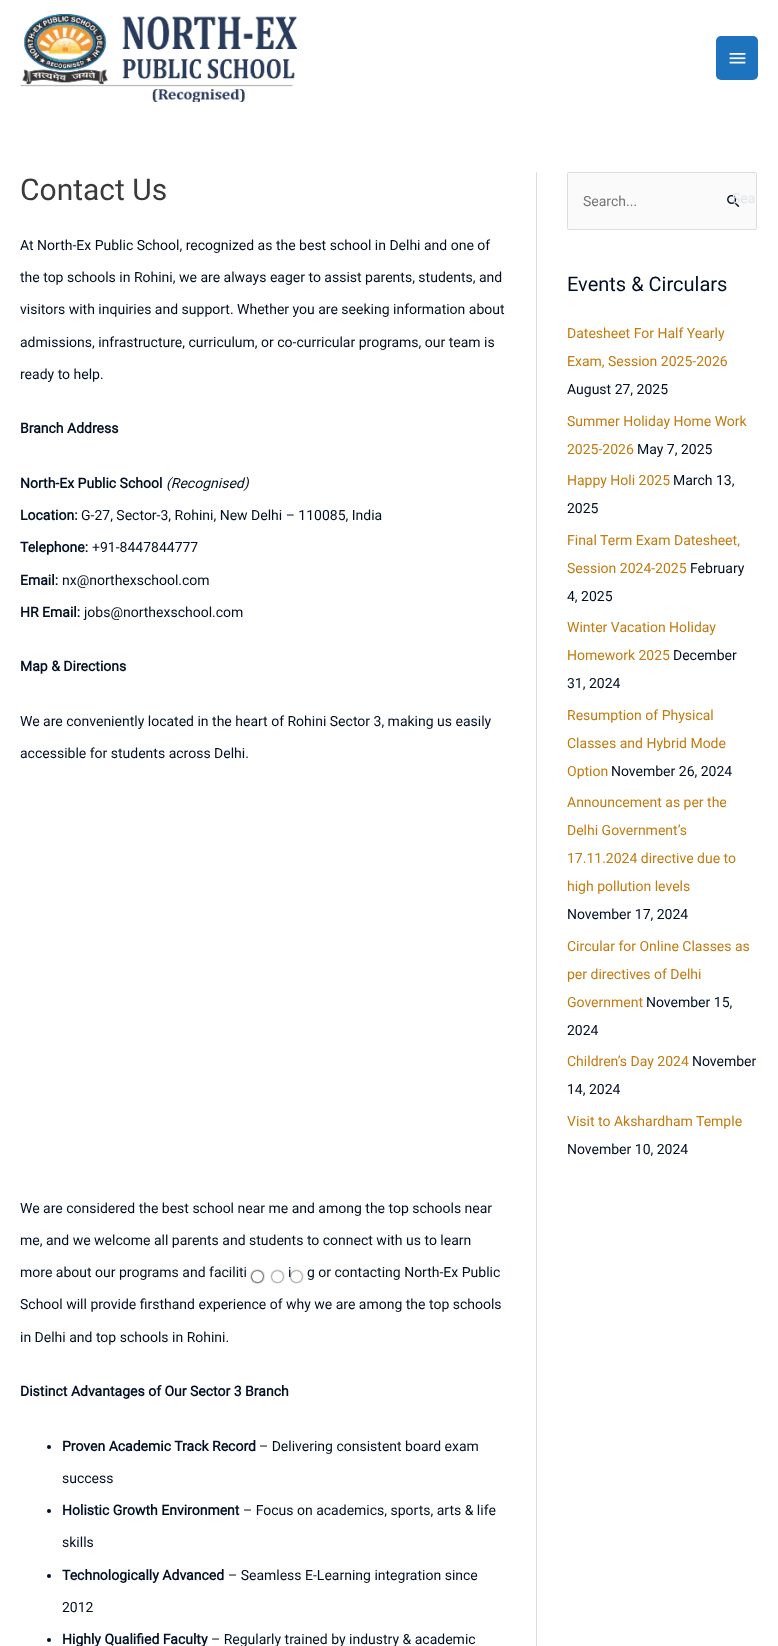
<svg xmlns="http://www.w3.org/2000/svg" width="778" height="1646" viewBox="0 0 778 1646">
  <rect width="100%" height="100%" fill="rgb(255,255,255)"/>
  <image x="20" y="14" width="277" height="88" href="pic1.png"/>
  <rect x="716" y="36" width="42" height="44" rx="5" fill="rgb(30,115,190)"/>
  <image x="729" y="53" width="17" height="11" href="pic2.png"/>
  <rect x="536" y="172" width="1" height="1474" fill="rgb(221,221,221)"/>
  <text x="20" y="200" font-family="Roboto" font-size="30" fill="rgb(58,58,58)">Contact Us</text>
  <g font-family="Roboto" font-size="14" fill="rgb(0,15,35)">
    <text x="20" y="250">At North-Ex Public School, recognized as the best school in Delhi and one of</text>
    <text x="20" y="282">the top schools in Rohini, we are always eager to assist parents, students, and</text>
    <text x="20" y="314">visitors with inquiries and support. Whether you are seeking information about</text>
    <text x="20" y="347">admissions, infrastructure, curriculum, or co-curricular programs, our team is</text>
    <text x="20" y="379">ready to help.</text>
  </g>
  <g font-family="Roboto" font-size="14" font-weight="bold" fill="rgb(0,15,35)">
    <text x="20" y="433">Branch Address</text>
    <text x="20" y="488">North-Ex Public School</text>
  </g>
  <text x="166" y="488" font-family="Roboto" font-size="14" font-style="italic" fill="rgb(0,15,35)">(Recognised)</text>
  <text x="20" y="520" font-family="Roboto" font-size="14" font-weight="bold" fill="rgb(0,15,35)">Location:</text>
  <text x="81" y="520" font-family="Roboto" font-size="14" fill="rgb(0,15,35)">G-27, Sector-3, Rohini, New Delhi – 110085, India</text>
  <text x="20" y="552" font-family="Roboto" font-size="14" font-weight="bold" fill="rgb(0,15,35)">Telephone:</text>
  <text x="92" y="552" font-family="Roboto" font-size="14" fill="rgb(0,15,35)">+91-8447844777</text>
  <text x="20" y="585" font-family="Roboto" font-size="14" font-weight="bold" fill="rgb(0,15,35)">Email:</text>
  <text x="62" y="585" font-family="Roboto" font-size="14" fill="rgb(0,15,35)">nx@northexschool.com</text>
  <text x="20" y="617" font-family="Roboto" font-size="14" font-weight="bold" fill="rgb(0,15,35)">HR Email:</text>
  <text x="84" y="617" font-family="Roboto" font-size="14" fill="rgb(0,15,35)">jobs@northexschool.com</text>
  <text x="20" y="671" font-family="Roboto" font-size="14" font-weight="bold" fill="rgb(0,15,35)">Map &amp; Directions</text>
  <g font-family="Roboto" font-size="14" fill="rgb(0,15,35)">
    <text x="20" y="726">We are conveniently located in the heart of Rohini Sector 3, making us easily</text>
    <text x="20" y="758">accessible for students across Delhi.</text>
    <text x="20" y="1213">We are considered the best school near me and among the top schools near</text>
    <text x="20" y="1245">me, and we welcome all parents and students to connect with us to learn</text>
    <text x="20" y="1277">more about our programs and faciliti</text>
    <text x="288" y="1277">i</text>
    <text x="307" y="1277">g or contacting North-Ex Public</text>
    <text x="20" y="1309">School will provide firsthand experience of why we are among the top schools</text>
    <text x="20" y="1342">in Delhi and top schools in Rohini.</text>
  </g>
  <rect x="252" y="1271" width="11" height="11" rx="5.5" fill="rgb(0,0,0)" filter="blur(1px)"/>
  <rect x="252" y="1271" width="11" height="11" rx="5.5" fill="rgb(0,0,0)" filter="blur(1px)"/>
  <circle cx="257.5" cy="1276.5" r="5.5" fill="rgb(255,255,255)"/>
  <rect x="272" y="1271" width="11" height="11" rx="5.5" fill="rgb(0,0,0)" filter="blur(1px)"/>
  <circle cx="277.5" cy="1276.5" r="5.5" fill="rgb(255,255,255)"/>
  <rect x="291" y="1271" width="11" height="11" rx="5.5" fill="rgb(0,0,0)" filter="blur(1px)"/>
  <circle cx="296.5" cy="1276.5" r="5.5" fill="rgb(255,255,255)"/>
  <text x="20" y="1396" font-family="Roboto" font-size="14" font-weight="bold" fill="rgb(0,15,35)">Distinct Advantages of Our Sector 3 Branch</text>
  <circle cx="49" cy="1447" r="2" fill="rgb(0,15,35)"/>
  <text x="62" y="1451" font-family="Roboto" font-size="14" font-weight="bold" fill="rgb(0,15,35)">Proven Academic Track Record</text>
  <g font-family="Roboto" font-size="14" fill="rgb(0,15,35)">
    <text x="259" y="1451">– Delivering consistent board exam</text>
    <text x="62" y="1483">success</text>
  </g>
  <circle cx="49" cy="1511" r="2" fill="rgb(0,15,35)"/>
  <text x="62" y="1515" font-family="Roboto" font-size="14" font-weight="bold" fill="rgb(0,15,35)">Holistic Growth Environment</text>
  <g font-family="Roboto" font-size="14" fill="rgb(0,15,35)">
    <text x="243" y="1515">– Focus on academics, sports, arts &amp; life</text>
    <text x="62" y="1547">skills</text>
  </g>
  <circle cx="49" cy="1576" r="2" fill="rgb(0,15,35)"/>
  <text x="62" y="1580" font-family="Roboto" font-size="14" font-weight="bold" fill="rgb(0,15,35)">Technologically Advanced</text>
  <g font-family="Roboto" font-size="14" fill="rgb(0,15,35)">
    <text x="228" y="1580">– Seamless E-Learning integration since</text>
    <text x="62" y="1612">2012</text>
  </g>
  <circle cx="49" cy="1640" r="2" fill="rgb(0,15,35)"/>
  <text x="62" y="1644" font-family="Roboto" font-size="14" font-weight="bold" fill="rgb(0,15,35)">Highly Qualified Faculty</text>
  <text x="211" y="1644" font-family="Roboto" font-size="14" fill="rgb(0,15,35)">– Regularly trained by industry &amp; academic</text>
  <rect x="567.5" y="172.5" width="189" height="57" rx="1.5" fill="rgb(250,250,250)" stroke="rgb(221,221,221)"/>
  <image x="727" y="194" width="13" height="13" href="pic3.png"/>
  <text x="732" y="203" font-family="Roboto" font-size="14" fill="rgb(228,229,231)">Sea</text>
  <text x="583" y="206" font-family="Roboto" font-size="14" fill="rgb(117,117,117)">Search...</text>
  <text x="567" y="291" font-family="Roboto" font-size="20" fill="rgb(0,15,35)">Events &amp; Circulars</text>
  <g font-family="Roboto" font-size="14" fill="rgb(194,123,17)">
    <text x="567" y="338">Datesheet For Half Yearly</text>
    <text x="567" y="366">Exam, Session 2025-2026</text>
  </g>
  <text x="567" y="394" font-family="Roboto" font-size="14" fill="rgb(0,15,35)">August 27, 2025</text>
  <g font-family="Roboto" font-size="14" fill="rgb(194,123,17)">
    <text x="567" y="426">Summer Holiday Home Work</text>
    <text x="567" y="454">2025-2026</text>
  </g>
  <text x="637" y="454" font-family="Roboto" font-size="14" fill="rgb(0,15,35)">May 7, 2025</text>
  <text x="567" y="485" font-family="Roboto" font-size="14" fill="rgb(194,123,17)">Happy Holi 2025</text>
  <g font-family="Roboto" font-size="14" fill="rgb(0,15,35)">
    <text x="673" y="485">March 13,</text>
    <text x="567" y="513">2025</text>
  </g>
  <g font-family="Roboto" font-size="14" fill="rgb(194,123,17)">
    <text x="567" y="545">Final Term Exam Datesheet,</text>
    <text x="567" y="573">Session 2024-2025</text>
  </g>
  <g font-family="Roboto" font-size="14" fill="rgb(0,15,35)">
    <text x="690" y="573">February</text>
    <text x="567" y="601">4, 2025</text>
  </g>
  <g font-family="Roboto" font-size="14" fill="rgb(194,123,17)">
    <text x="567" y="632">Winter Vacation Holiday</text>
    <text x="567" y="660">Homework 2025</text>
  </g>
  <g font-family="Roboto" font-size="14" fill="rgb(0,15,35)">
    <text x="673" y="660">December</text>
    <text x="567" y="688">31, 2024</text>
  </g>
  <g font-family="Roboto" font-size="14" fill="rgb(194,123,17)">
    <text x="567" y="720">Resumption of Physical</text>
    <text x="567" y="748">Classes and Hybrid Mode</text>
    <text x="567" y="776">Option</text>
  </g>
  <text x="611" y="776" font-family="Roboto" font-size="14" fill="rgb(0,15,35)">November 26, 2024</text>
  <g font-family="Roboto" font-size="14" fill="rgb(194,123,17)">
    <text x="567" y="807">Announcement as per the</text>
    <text x="567" y="835">Delhi Government’s</text>
    <text x="567" y="863">17.11.2024 directive due to</text>
    <text x="567" y="891">high pollution levels</text>
  </g>
  <text x="567" y="919" font-family="Roboto" font-size="14" fill="rgb(0,15,35)">November 17, 2024</text>
  <g font-family="Roboto" font-size="14" fill="rgb(194,123,17)">
    <text x="567" y="951">Circular for Online Classes as</text>
    <text x="567" y="979">per directives of Delhi</text>
    <text x="567" y="1007">Government</text>
  </g>
  <g font-family="Roboto" font-size="14" fill="rgb(0,15,35)">
    <text x="646" y="1007">November 15,</text>
    <text x="567" y="1035">2024</text>
  </g>
  <text x="567" y="1066" font-family="Roboto" font-size="14" fill="rgb(194,123,17)">Children’s Day 2024</text>
  <g font-family="Roboto" font-size="14" fill="rgb(0,15,35)">
    <text x="692" y="1066">November</text>
    <text x="567" y="1094">14, 2024</text>
  </g>
  <text x="567" y="1126" font-family="Roboto" font-size="14" fill="rgb(194,123,17)">Visit to Akshardham Temple</text>
  <text x="567" y="1154" font-family="Roboto" font-size="14" fill="rgb(0,15,35)">November 10, 2024</text>
</svg>
